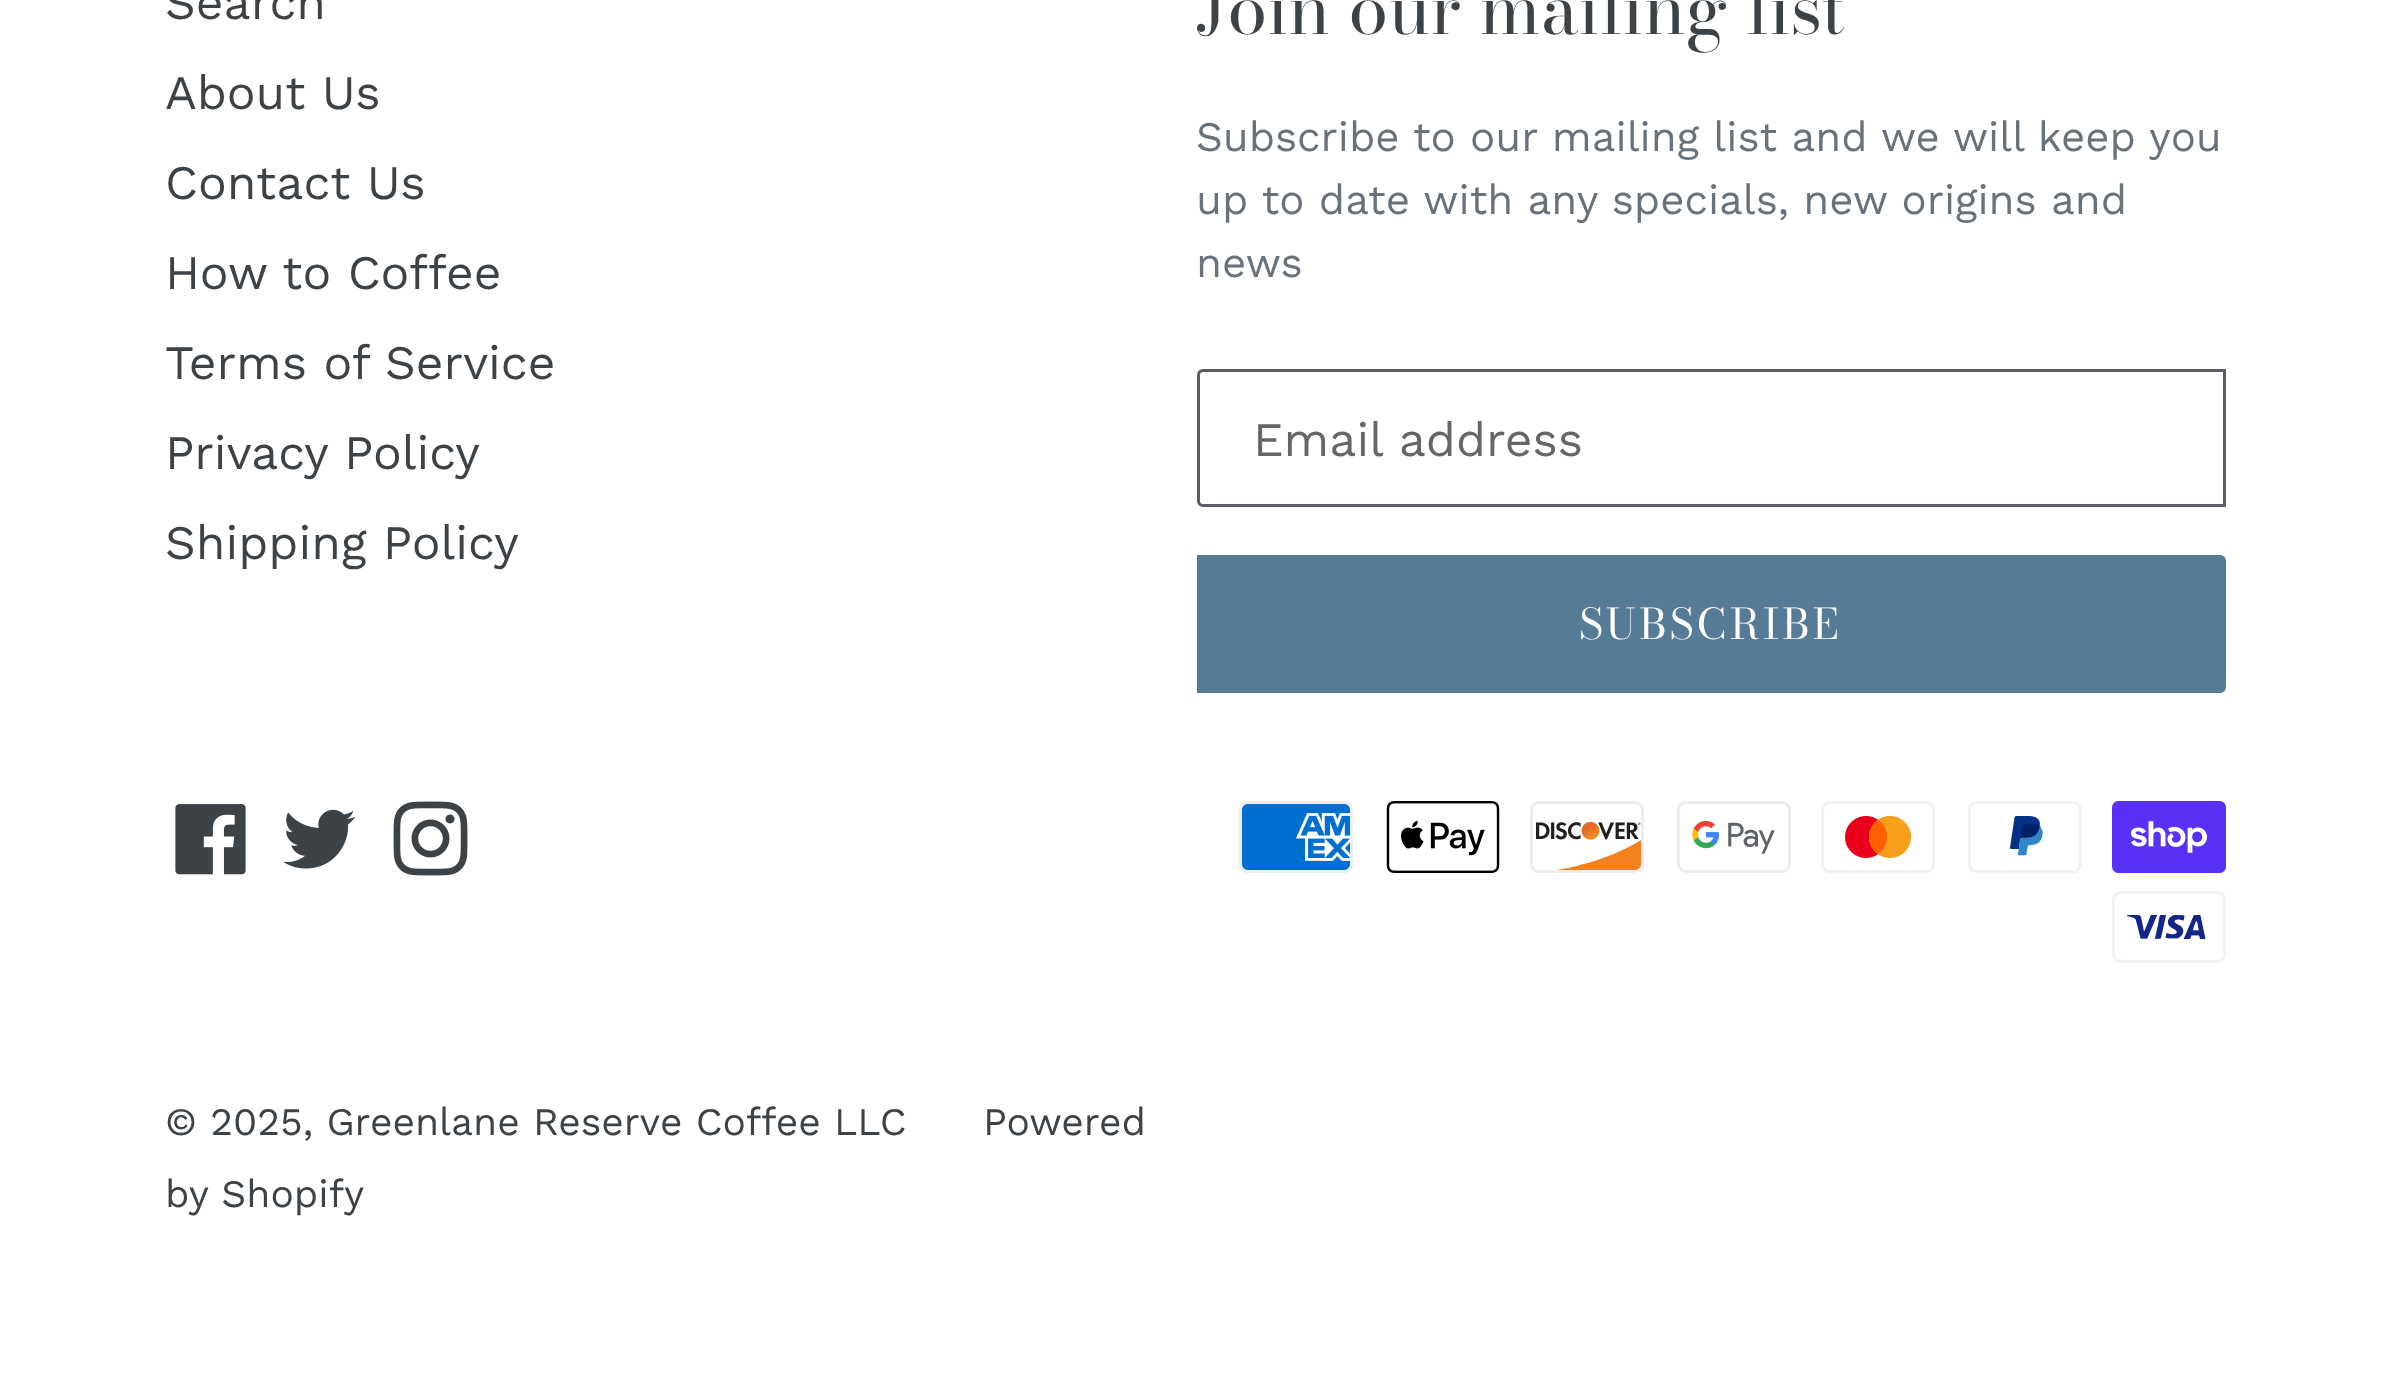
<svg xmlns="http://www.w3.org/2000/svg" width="2390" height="1390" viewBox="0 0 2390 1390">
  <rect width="100%" height="100%" fill="rgb(255,255,255)"/>
  <g font-family="Work Sans" font-size="48" fill="rgb(61,66,70)">
    <text>
      <tspan x="165" y="19">Search</tspan>
      <tspan x="165" y="109">About Us</tspan>
      <tspan x="165" y="199">Contact Us</tspan>
      <tspan x="165" y="289">How to Coffee</tspan>
      <tspan x="165" y="379">Terms of Service</tspan>
      <tspan x="165" y="469">Privacy Policy</tspan>
      <tspan x="165" y="559">Shipping Policy</tspan>
    </text>
  </g>
  <text x="1196" y="34" font-family="Bodoni Moda" font-size="72" fill="rgb(61,66,70)">Join our mailing list</text>
  <g font-family="Work Sans" font-size="42" fill="rgb(105,114,123)">
    <text>
      <tspan x="1196" y="151">Subscribe to our mailing list and we will keep you</tspan>
      <tspan x="1196" y="214">up to date with any specials, new origins and</tspan>
      <tspan x="1196" y="277">news</tspan>
    </text>
  </g>
  <path d="M1203 370.5H2224.5V505.5H1203C1200.5 505.5 1198.5 503.5 1198.5 501V375C1198.5 372.5 1200.5 370.5 1203 370.5Z" fill="none" stroke="rgb(90,94,98)" stroke-width="3"/>
  <text x="1253" y="456" font-family="Work Sans" font-size="48" fill="rgb(102,102,102)">Email address</text>
  <path d="M1197 555H2220C2223.5 555 2226 557.5 2226 561V687C2226 690.5 2223.5 693 2220 693H1197Z" fill="rgb(85,123,151)"/>
  <text x="1579" y="639" font-family="'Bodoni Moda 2'" font-size="42" letter-spacing="3.25" fill="rgb(255,255,255)">SUBSCRIBE</text>
  <image x="175" y="804" width="71" height="71" href="pic1.png"/>
  <image x="283" y="809" width="73" height="60" href="pic2.png"/>
  <image x="393" y="801" width="75" height="75" href="pic3.png"/>
  <image x="1239" y="801" width="114" height="72" href="pic4.png"/>
  <image x="1386" y="801" width="114" height="72" href="pic5.png"/>
  <image x="1530" y="801" width="114" height="72" href="pic6.png"/>
  <image x="1677" y="801" width="114" height="72" href="pic7.png"/>
  <image x="1821" y="801" width="114" height="72" href="pic8.png"/>
  <image x="1968" y="801" width="114" height="72" href="pic9.png"/>
  <image x="2112" y="801" width="114" height="72" href="pic10.png"/>
  <image x="2112" y="891" width="114" height="72" href="pic11.png"/>
  <g font-family="Work Sans" font-size="39" fill="rgb(61,66,70)">
    <text x="165" y="1135">© 2025, Greenlane Reserve Coffee LLC</text>
    <text x="983" y="1135">Powered</text>
    <text x="165" y="1207">by Shopify</text>
  </g>
</svg>
